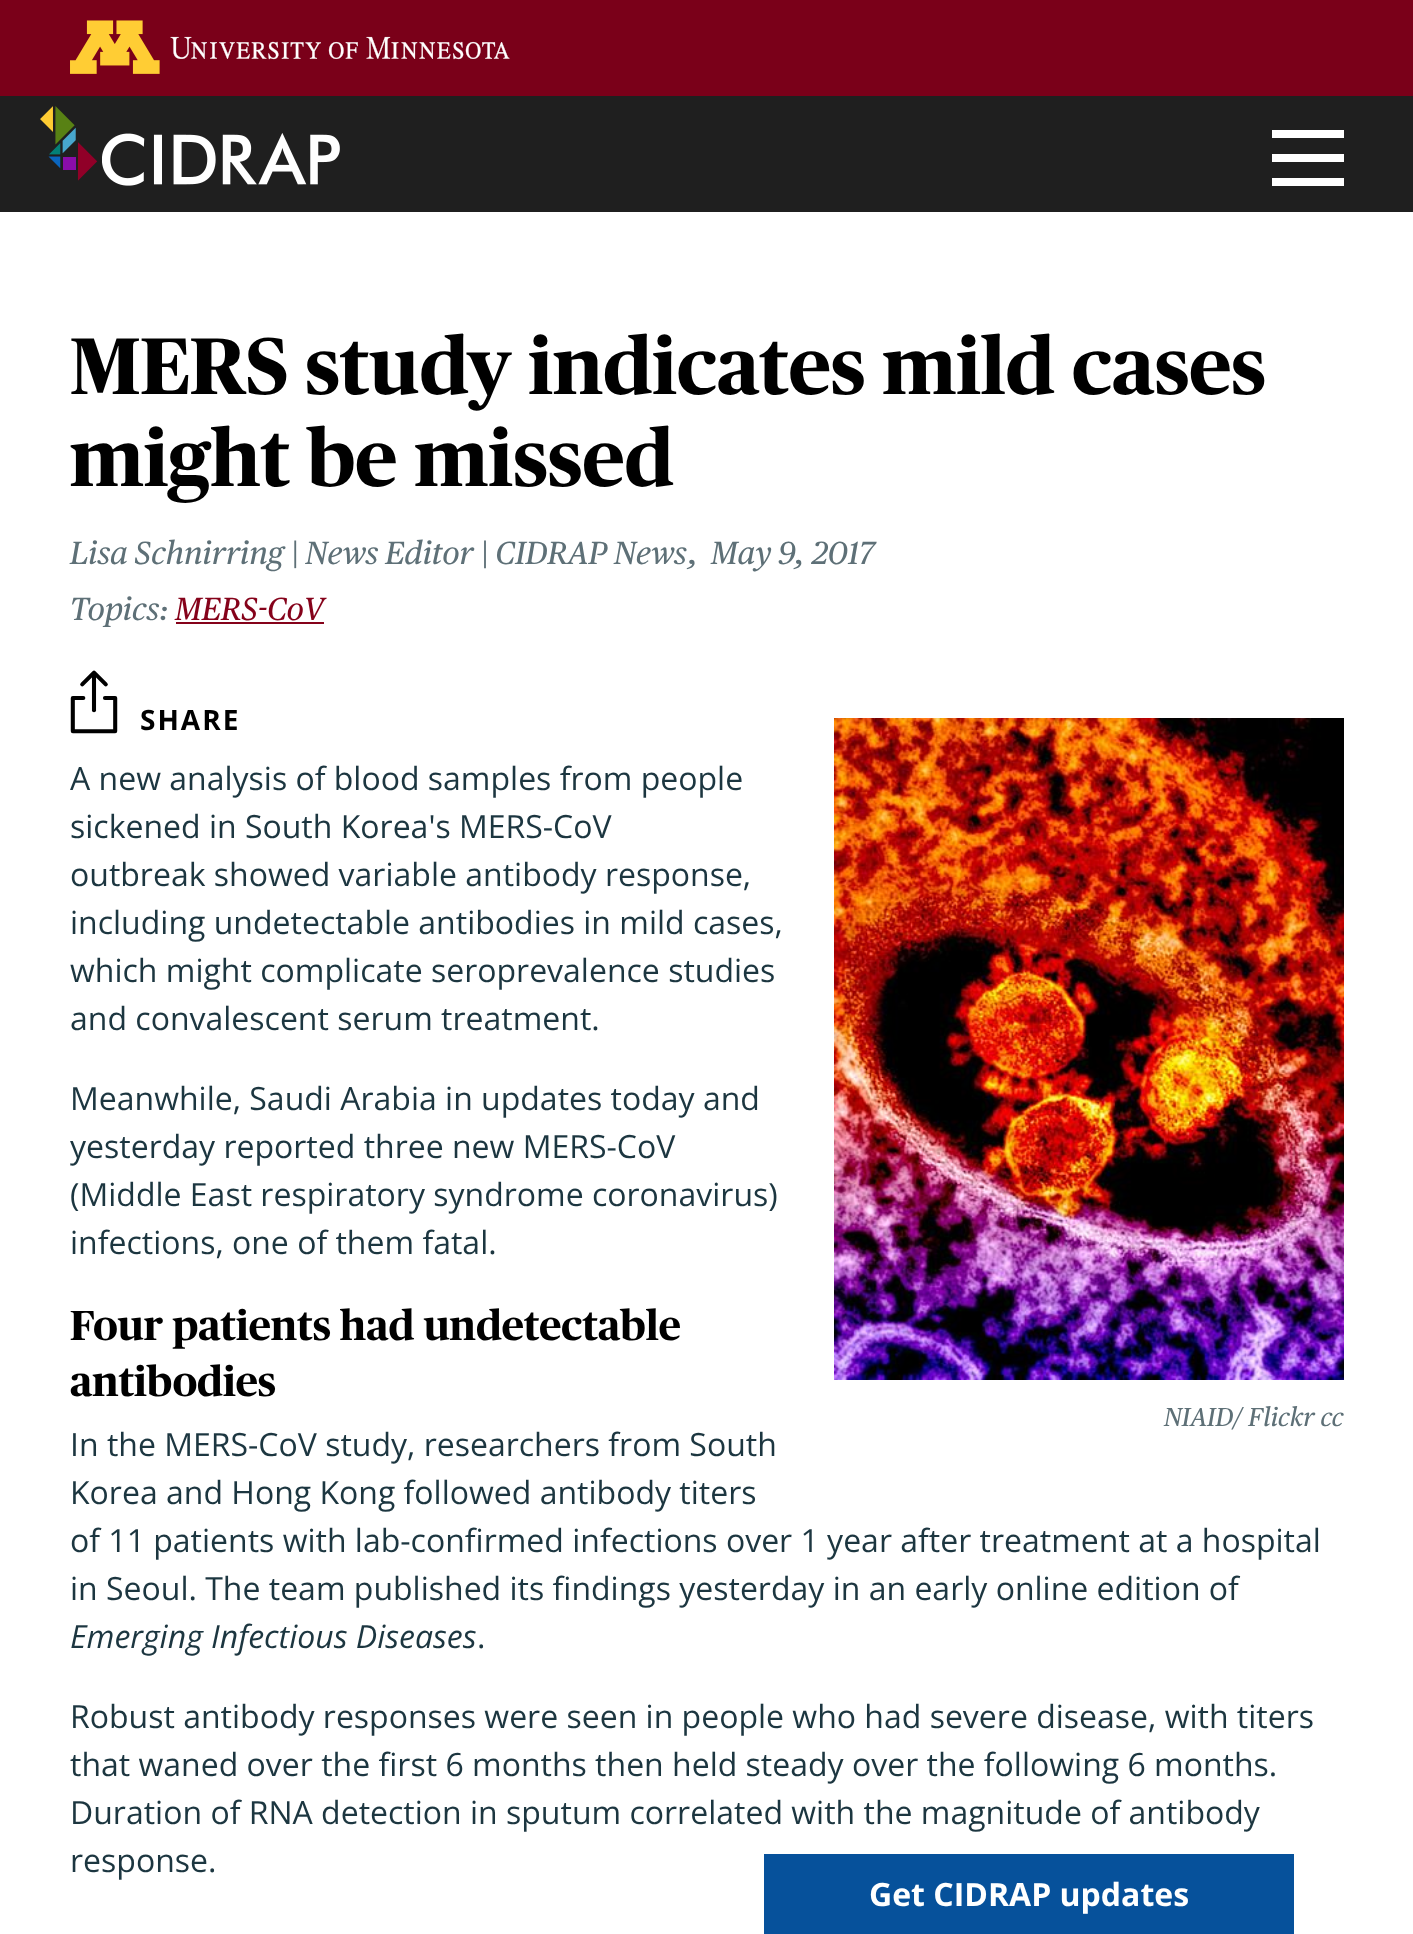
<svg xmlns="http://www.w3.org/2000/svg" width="1413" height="1934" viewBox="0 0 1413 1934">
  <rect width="100%" height="100%" fill="rgb(255,255,255)"/>
  <rect x="0" y="0" width="1413" height="96" fill="rgb(122,0,25)"/>
  <image x="70" y="20" width="440" height="54" href="pic1.png"/>
  <rect x="0" y="96" width="1413" height="116" fill="rgb(31,31,31)"/>
  <image x="40" y="106" width="300" height="80" href="pic2.png"/>
  <rect x="1272" y="130" width="72" height="8" fill="rgb(255,255,255)"/>
  <rect x="1272" y="154" width="72" height="8" fill="rgb(255,255,255)"/>
  <rect x="1272" y="178" width="72" height="8" fill="rgb(255,255,255)"/>
  <g font-family="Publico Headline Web" font-size="80" font-weight="bold" fill="rgb(0,0,0)">
    <text>
      <tspan x="70" y="394">MERS study indicates mild cases</tspan>
      <tspan x="70" y="486">might be missed</tspan>
    </text>
  </g>
  <g font-family="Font" font-size="32" font-style="italic" fill="rgb(94,112,119)">
    <text x="70" y="564">Lisa Schnirring | News Editor | CIDRAP News</text>
    <text x="688" y="564">,</text>
    <text x="711" y="564">May 9, 2017</text>
    <text x="70" y="620">Topics:</text>
  </g>
  <text x="175" y="620" font-family="Font" font-size="32" font-style="italic" fill="rgb(133,2,26)">MERS-CoV</text>
  <rect x="176" y="622" width="148" height="2" fill="rgb(133,2,26)"/>
  <image x="834" y="718" width="510" height="662" href="pic3.png"/>
  <text x="1164" y="1426" font-family="Font" font-size="26" font-style="italic" fill="rgb(94,112,119)">NIAID/ Flickr cc</text>
  <image x="70" y="670" width="48" height="64" href="pic4.png"/>
  <text x="140" y="730" font-family="Open Sans" font-size="28" font-weight="bold" letter-spacing="2" fill="rgb(0,0,0)">SHARE</text>
  <g font-family="Open Sans" font-size="32" fill="rgb(28,54,64)">
    <text>
      <tspan x="70" y="790">A new analysis of blood samples from people</tspan>
      <tspan x="70" y="838">sickened in South Korea's MERS-CoV</tspan>
      <tspan x="70" y="886">outbreak showed variable antibody response,</tspan>
      <tspan x="70" y="934">including undetectable antibodies in mild cases,</tspan>
      <tspan x="70" y="982">which might complicate seroprevalence studies</tspan>
      <tspan x="70" y="1030">and convalescent serum treatment.</tspan>
    </text>
    <text>
      <tspan x="70" y="1110">Meanwhile, Saudi Arabia in updates today and</tspan>
      <tspan x="70" y="1158">yesterday reported three new MERS-CoV</tspan>
      <tspan x="70" y="1206">(Middle East respiratory syndrome coronavirus)</tspan>
      <tspan x="70" y="1254">infections, one of them fatal.</tspan>
    </text>
  </g>
  <g font-family="Publico Headline Web" font-size="42" font-weight="bold" fill="rgb(0,0,0)">
    <text>
      <tspan x="70" y="1340">Four patients had undetectable</tspan>
      <tspan x="70" y="1396">antibodies</tspan>
    </text>
  </g>
  <g font-family="Open Sans" font-size="32" fill="rgb(28,54,64)">
    <text>
      <tspan x="70" y="1456">In the MERS-CoV study, researchers from South</tspan>
      <tspan x="70" y="1504">Korea and Hong Kong followed antibody titers</tspan>
      <tspan x="70" y="1552">of 11 patients with lab-confirmed infections over 1 year after treatment at a hospital</tspan>
      <tspan x="70" y="1600">in Seoul. The team published its findings yesterday in an early online edition of</tspan>
    </text>
  </g>
  <text x="70" y="1648" font-family="Open Sans" font-size="32" font-style="italic" fill="rgb(28,54,64)">Emerging Infectious Diseases</text>
  <g font-family="Open Sans" font-size="32" fill="rgb(28,54,64)">
    <text x="477" y="1648">.</text>
    <text>
      <tspan x="70" y="1728">Robust antibody responses were seen in people who had severe disease, with titers</tspan>
      <tspan x="70" y="1776">that waned over the first 6 months then held steady over the following 6 months.</tspan>
      <tspan x="70" y="1824">Duration of RNA detection in sputum correlated with the magnitude of antibody</tspan>
      <tspan x="70" y="1872">response.</tspan>
    </text>
  </g>
  <rect x="764" y="1854" width="530" height="80" fill="rgb(6,81,155)"/>
  <text x="869" y="1906" font-family="Open Sans" font-size="32" font-weight="bold" fill="rgb(255,255,255)">Get CIDRAP updates</text>
</svg>
